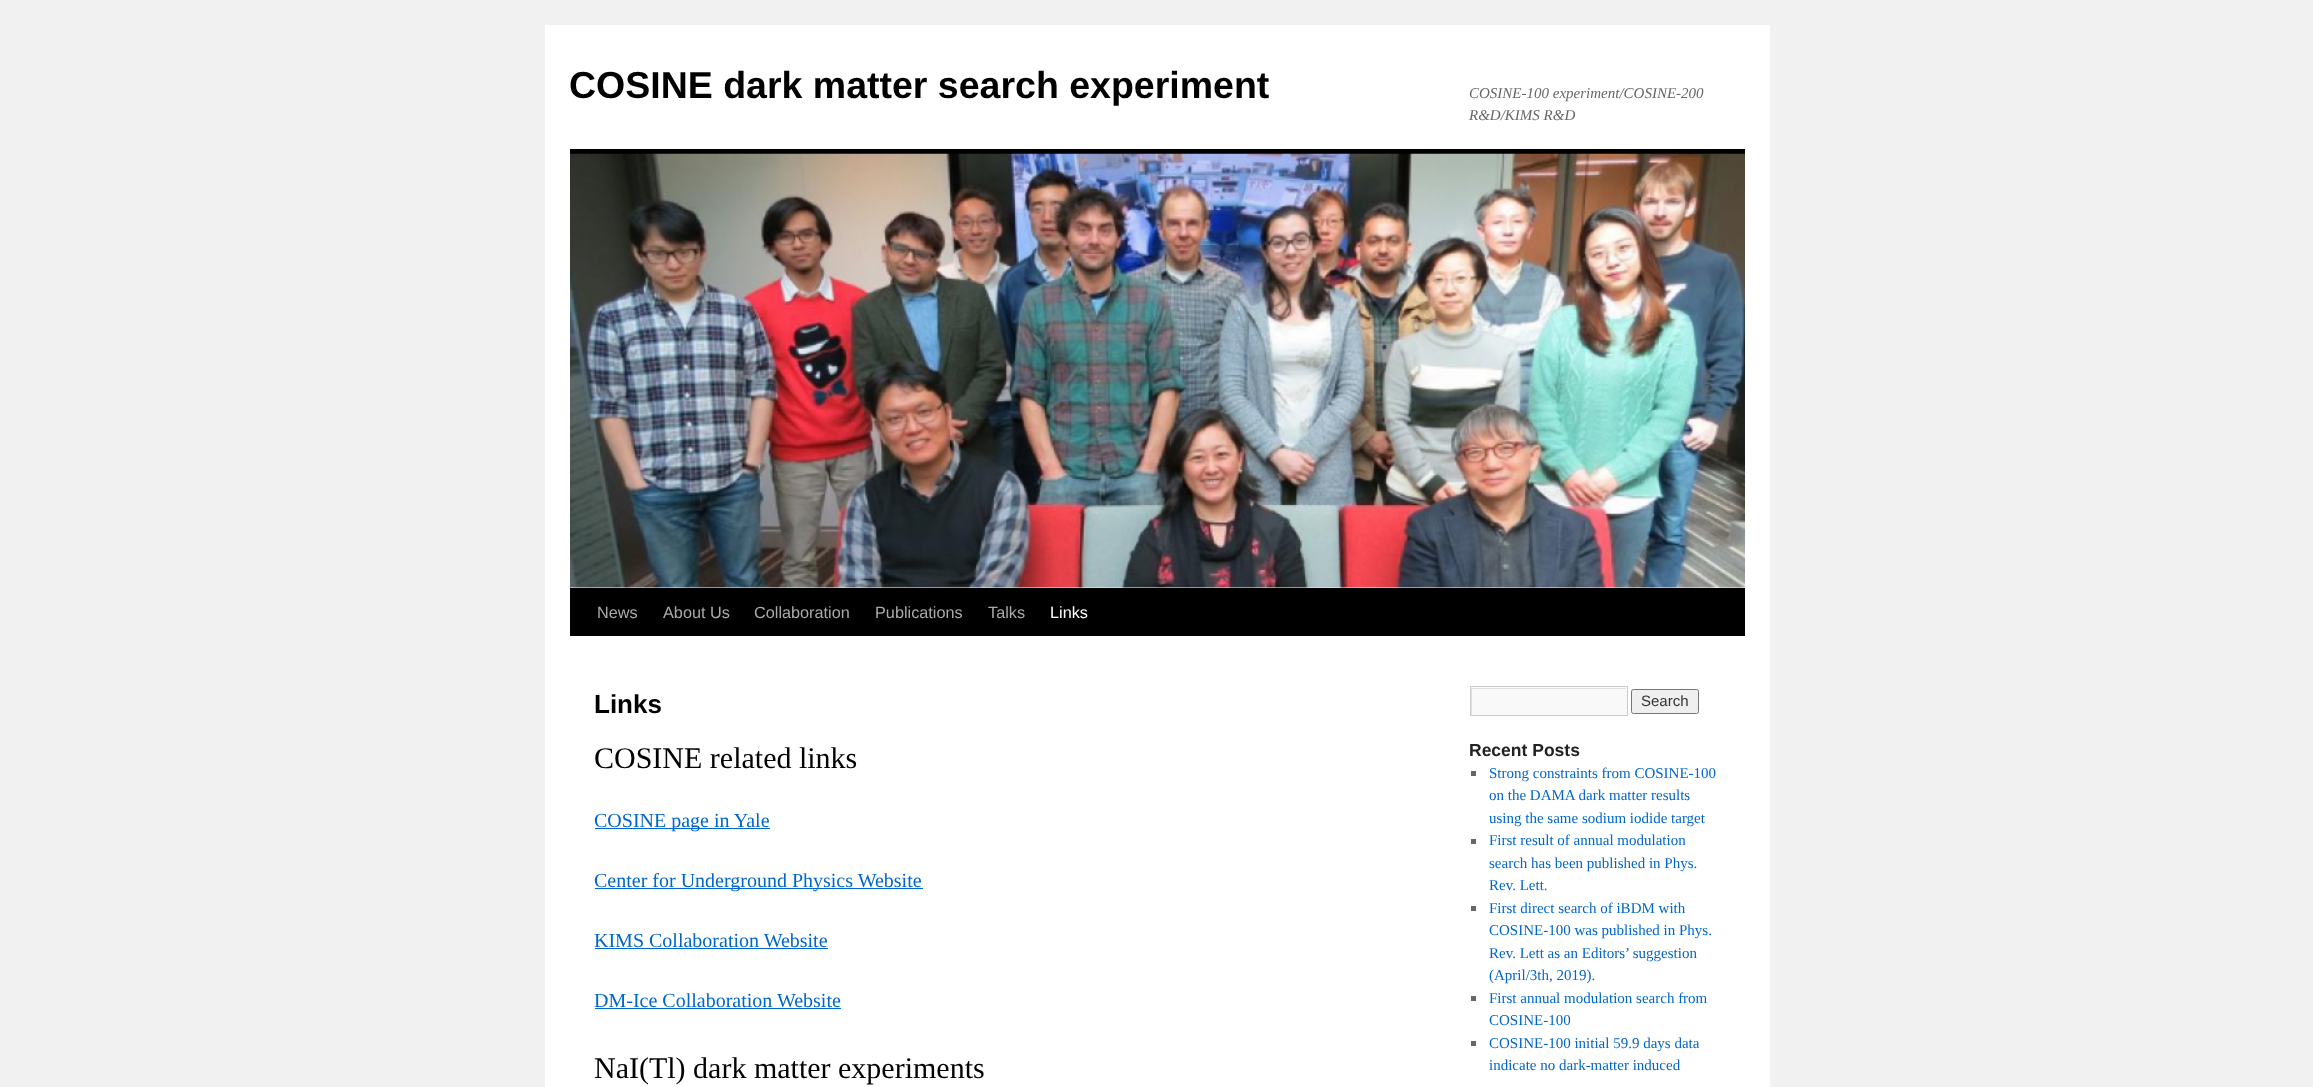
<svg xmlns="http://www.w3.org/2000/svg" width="2313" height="1087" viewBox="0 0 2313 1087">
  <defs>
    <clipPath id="clip1"><rect x="1471" y="688" width="155" height="27"/></clipPath>
  </defs>
  <rect width="100%" height="100%" fill="rgb(241,241,241)"/>
  <rect x="545" y="25" width="1225" height="1062" fill="rgb(255,255,255)"/>
  <text x="569" y="98" font-family="Liberation Sans" font-size="37.5" font-weight="bold" fill="rgb(0,0,0)">COSINE dark matter search experiment</text>
  <g font-family="Liberation Serif" font-size="15" font-style="italic" fill="rgb(102,102,102)">
    <text>
      <tspan x="1469" y="98">COSINE-100 experiment/COSINE-200</tspan>
      <tspan x="1469" y="120">R&amp;D/KIMS R&amp;D</tspan>
    </text>
  </g>
  <rect x="570" y="149" width="1175" height="5" fill="rgb(0,0,0)"/>
  <rect x="570" y="588" width="1175" height="48" fill="rgb(0,0,0)"/>
  <image x="570" y="153" width="1175" height="435" href="pic1.png"/>
  <g font-family="Liberation Sans" font-size="16.25" fill="rgb(170,170,170)">
    <text x="597" y="618">News</text>
    <text x="663" y="618">About Us</text>
    <text x="754" y="618">Collaboration</text>
    <text x="875" y="618">Publications</text>
    <text x="988" y="618">Talks</text>
  </g>
  <text x="1050" y="618" font-family="Liberation Sans" font-size="16.25" fill="rgb(255,255,255)">Links</text>
  <text x="594" y="713" font-family="Liberation Sans" font-size="26" font-weight="bold" fill="rgb(0,0,0)">Links</text>
  <text x="594" y="768" font-family="Liberation Serif" font-size="30" fill="rgb(0,0,0)">COSINE related links</text>
  <rect x="595" y="828" width="175" height="1" fill="rgb(0,102,204)"/>
  <text x="594" y="827" font-family="Liberation Serif" font-size="20" fill="rgb(0,102,204)">COSINE page in Yale</text>
  <rect x="595" y="888" width="328" height="1" fill="rgb(0,102,204)"/>
  <g font-family="Liberation Serif" font-size="20" fill="rgb(0,102,204)">
    <text x="594" y="887">Center for Underground Physics Website</text>
    <text x="594" y="947">KIMS Collaboration Website</text>
  </g>
  <rect x="595" y="948" width="233" height="1" fill="rgb(0,102,204)"/>
  <text x="594" y="1007" font-family="Liberation Serif" font-size="20" fill="rgb(0,102,204)">DM-Ice Collaboration Website</text>
  <rect x="595" y="1008" width="246" height="1" fill="rgb(0,102,204)"/>
  <text x="594" y="1078" font-family="Liberation Serif" font-size="30" fill="rgb(0,0,0)">NaI(Tl) dark matter experiments</text>
  <rect x="1471" y="687" width="156" height="28" fill="rgb(249,249,249)"/>
  <g clip-path="url(#clip1)">
    <path d="M1348 564H1750V839H1348ZM1472 689H1628V716H1472Z" fill="rgb(224,224,224)" fill-rule="evenodd"/>
  </g>
  <rect x="1470.5" y="686.5" width="157" height="29" fill="none" stroke="rgb(204,204,204)"/>
  <rect x="1631.5" y="689.5" width="67" height="24" rx="2" fill="rgb(239,239,239)" stroke="rgb(118,118,118)"/>
  <text x="1641" y="706" font-family="Liberation Sans" font-size="15" fill="rgb(51,51,51)">Search</text>
  <text x="1469" y="756" font-family="Liberation Sans" font-size="17.5" font-weight="bold" fill="rgb(34,34,34)">Recent Posts</text>
  <rect x="1471" y="771" width="5" height="5" fill="rgb(102,102,102)"/>
  <g font-family="Liberation Serif" font-size="15" fill="rgb(0,102,204)">
    <text>
      <tspan x="1489" y="778">Strong constraints from COSINE-100</tspan>
      <tspan x="1489" y="800">on the DAMA dark matter results</tspan>
      <tspan x="1489" y="823">using the same sodium iodide target</tspan>
    </text>
  </g>
  <rect x="1471" y="839" width="5" height="5" fill="rgb(102,102,102)"/>
  <g font-family="Liberation Serif" font-size="15" fill="rgb(0,102,204)">
    <text>
      <tspan x="1489" y="845">First result of annual modulation</tspan>
      <tspan x="1489" y="868">search has been published in Phys.</tspan>
      <tspan x="1489" y="890">Rev. Lett.</tspan>
    </text>
  </g>
  <rect x="1471" y="906" width="5" height="5" fill="rgb(102,102,102)"/>
  <g font-family="Liberation Serif" font-size="15" fill="rgb(0,102,204)">
    <text>
      <tspan x="1489" y="913">First direct search of iBDM with</tspan>
      <tspan x="1489" y="935">COSINE-100 was published in Phys.</tspan>
      <tspan x="1489" y="958">Rev. Lett as an Editors’ suggestion</tspan>
      <tspan x="1489" y="980">(April/3th, 2019).</tspan>
    </text>
  </g>
  <rect x="1471" y="996" width="5" height="5" fill="rgb(102,102,102)"/>
  <g font-family="Liberation Serif" font-size="15" fill="rgb(0,102,204)">
    <text>
      <tspan x="1489" y="1003">First annual modulation search from</tspan>
      <tspan x="1489" y="1025">COSINE-100</tspan>
    </text>
  </g>
  <rect x="1471" y="1041" width="5" height="5" fill="rgb(102,102,102)"/>
  <g font-family="Liberation Serif" font-size="15" fill="rgb(0,102,204)">
    <text>
      <tspan x="1489" y="1048">COSINE-100 initial 59.9 days data</tspan>
      <tspan x="1489" y="1070">indicate no dark-matter induced</tspan>
    </text>
  </g>
</svg>
